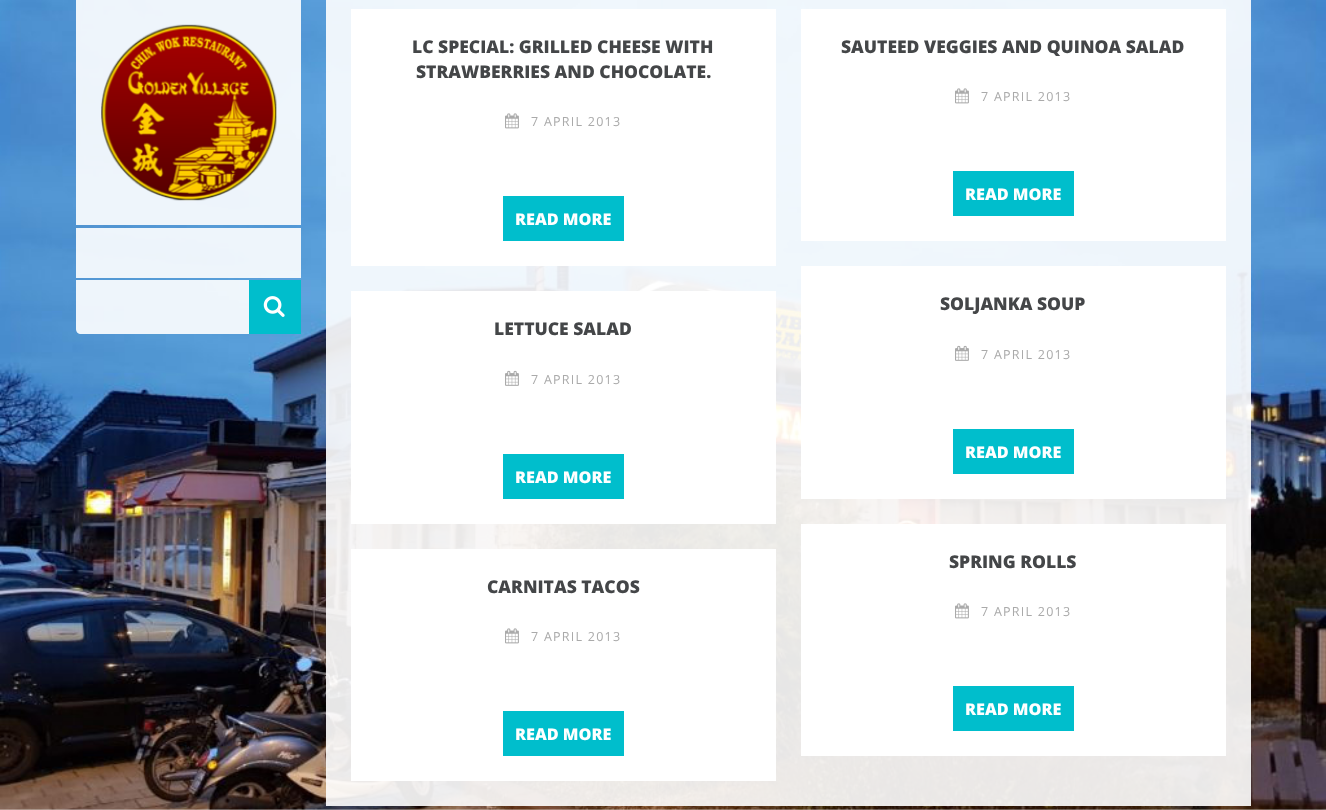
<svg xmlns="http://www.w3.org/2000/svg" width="1326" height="810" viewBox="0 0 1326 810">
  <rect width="100%" height="100%" fill="rgb(255,255,255)"/>
  <image x="0" y="0" width="1326" height="810" href="pic1.png"/>
  <rect x="76" y="0" width="225" height="225" fill="rgba(255,255,255,0.9)"/>
  <image x="101" y="24" width="176" height="177" href="pic2.png"/>
  <rect x="76" y="228" width="225" height="50" fill="rgba(255,255,255,0.9)"/>
  <path d="M76 280H301V334H81C78 334 76 332 76 329Z" fill="rgba(255,255,255,0.9)"/>
  <rect x="249" y="280" width="52" height="54" fill="rgb(0,190,204)"/>
  <image x="263" y="296" width="22" height="21" href="pic3.png"/>
  <rect x="326" y="0" width="925" height="806" fill="rgba(255,255,255,0.9)"/>
  <rect x="351" y="9" width="425" height="257" fill="rgb(255,255,255)"/>
  <g font-family="Open Sans" font-size="17.5" font-weight="800" fill="rgb(68,70,72)">
    <text x="412" y="53">LC SPECIAL: GRILLED CHEESE WITH</text>
    <text x="416" y="78">STRAWBERRIES AND CHOCOLATE.</text>
  </g>
  <image x="505" y="113" width="14" height="16" href="pic4.png"/>
  <text x="531" y="126" font-family="Open Sans" font-size="12.5" letter-spacing="1.25" fill="rgb(170,170,170)">7 APRIL 2013</text>
  <rect x="503" y="196" width="121" height="45" fill="rgb(0,190,204)"/>
  <text x="515" y="225" font-family="Open Sans" font-size="16.25" font-weight="800" fill="rgb(255,255,255)">READ MORE</text>
  <rect x="801" y="9" width="425" height="232" fill="rgb(255,255,255)"/>
  <text x="841" y="53" font-family="Open Sans" font-size="17.5" font-weight="800" fill="rgb(68,70,72)">SAUTEED VEGGIES AND QUINOA SALAD</text>
  <image x="955" y="88" width="14" height="16" href="pic4.png"/>
  <text x="981" y="101" font-family="Open Sans" font-size="12.5" letter-spacing="1.25" fill="rgb(170,170,170)">7 APRIL 2013</text>
  <rect x="953" y="171" width="121" height="45" fill="rgb(0,190,204)"/>
  <text x="965" y="200" font-family="Open Sans" font-size="16.25" font-weight="800" fill="rgb(255,255,255)">READ MORE</text>
  <rect x="351" y="291" width="425" height="233" fill="rgb(255,255,255)"/>
  <text x="494" y="335" font-family="Open Sans" font-size="17.5" font-weight="800" fill="rgb(68,70,72)">LETTUCE SALAD</text>
  <image x="505" y="370" width="14" height="16" href="pic5.png"/>
  <text x="531" y="384" font-family="Open Sans" font-size="12.5" letter-spacing="1.25" fill="rgb(170,170,170)">7 APRIL 2013</text>
  <rect x="503" y="454" width="121" height="45" fill="rgb(0,190,204)"/>
  <text x="515" y="483" font-family="Open Sans" font-size="16.25" font-weight="800" fill="rgb(255,255,255)">READ MORE</text>
  <rect x="801" y="266" width="425" height="233" fill="rgb(255,255,255)"/>
  <text x="940" y="310" font-family="Open Sans" font-size="17.5" font-weight="800" fill="rgb(68,70,72)">SOLJANKA SOUP</text>
  <image x="955" y="345" width="14" height="16" href="pic5.png"/>
  <text x="981" y="359" font-family="Open Sans" font-size="12.5" letter-spacing="1.25" fill="rgb(170,170,170)">7 APRIL 2013</text>
  <rect x="953" y="429" width="121" height="45" fill="rgb(0,190,204)"/>
  <text x="965" y="458" font-family="Open Sans" font-size="16.25" font-weight="800" fill="rgb(255,255,255)">READ MORE</text>
  <rect x="351" y="549" width="425" height="232" fill="rgb(255,255,255)"/>
  <text x="487" y="593" font-family="Open Sans" font-size="17.5" font-weight="800" fill="rgb(68,70,72)">CARNITAS TACOS</text>
  <image x="505" y="628" width="14" height="16" href="pic4.png"/>
  <text x="531" y="641" font-family="Open Sans" font-size="12.5" letter-spacing="1.25" fill="rgb(170,170,170)">7 APRIL 2013</text>
  <rect x="503" y="711" width="121" height="45" fill="rgb(0,190,204)"/>
  <text x="515" y="740" font-family="Open Sans" font-size="16.25" font-weight="800" fill="rgb(255,255,255)">READ MORE</text>
  <rect x="801" y="524" width="425" height="232" fill="rgb(255,255,255)"/>
  <text x="949" y="568" font-family="Open Sans" font-size="17.5" font-weight="800" fill="rgb(68,70,72)">SPRING ROLLS</text>
  <image x="955" y="603" width="14" height="16" href="pic4.png"/>
  <text x="981" y="616" font-family="Open Sans" font-size="12.5" letter-spacing="1.25" fill="rgb(170,170,170)">7 APRIL 2013</text>
  <rect x="953" y="686" width="121" height="45" fill="rgb(0,190,204)"/>
  <text x="965" y="715" font-family="Open Sans" font-size="16.25" font-weight="800" fill="rgb(255,255,255)">READ MORE</text>
</svg>
